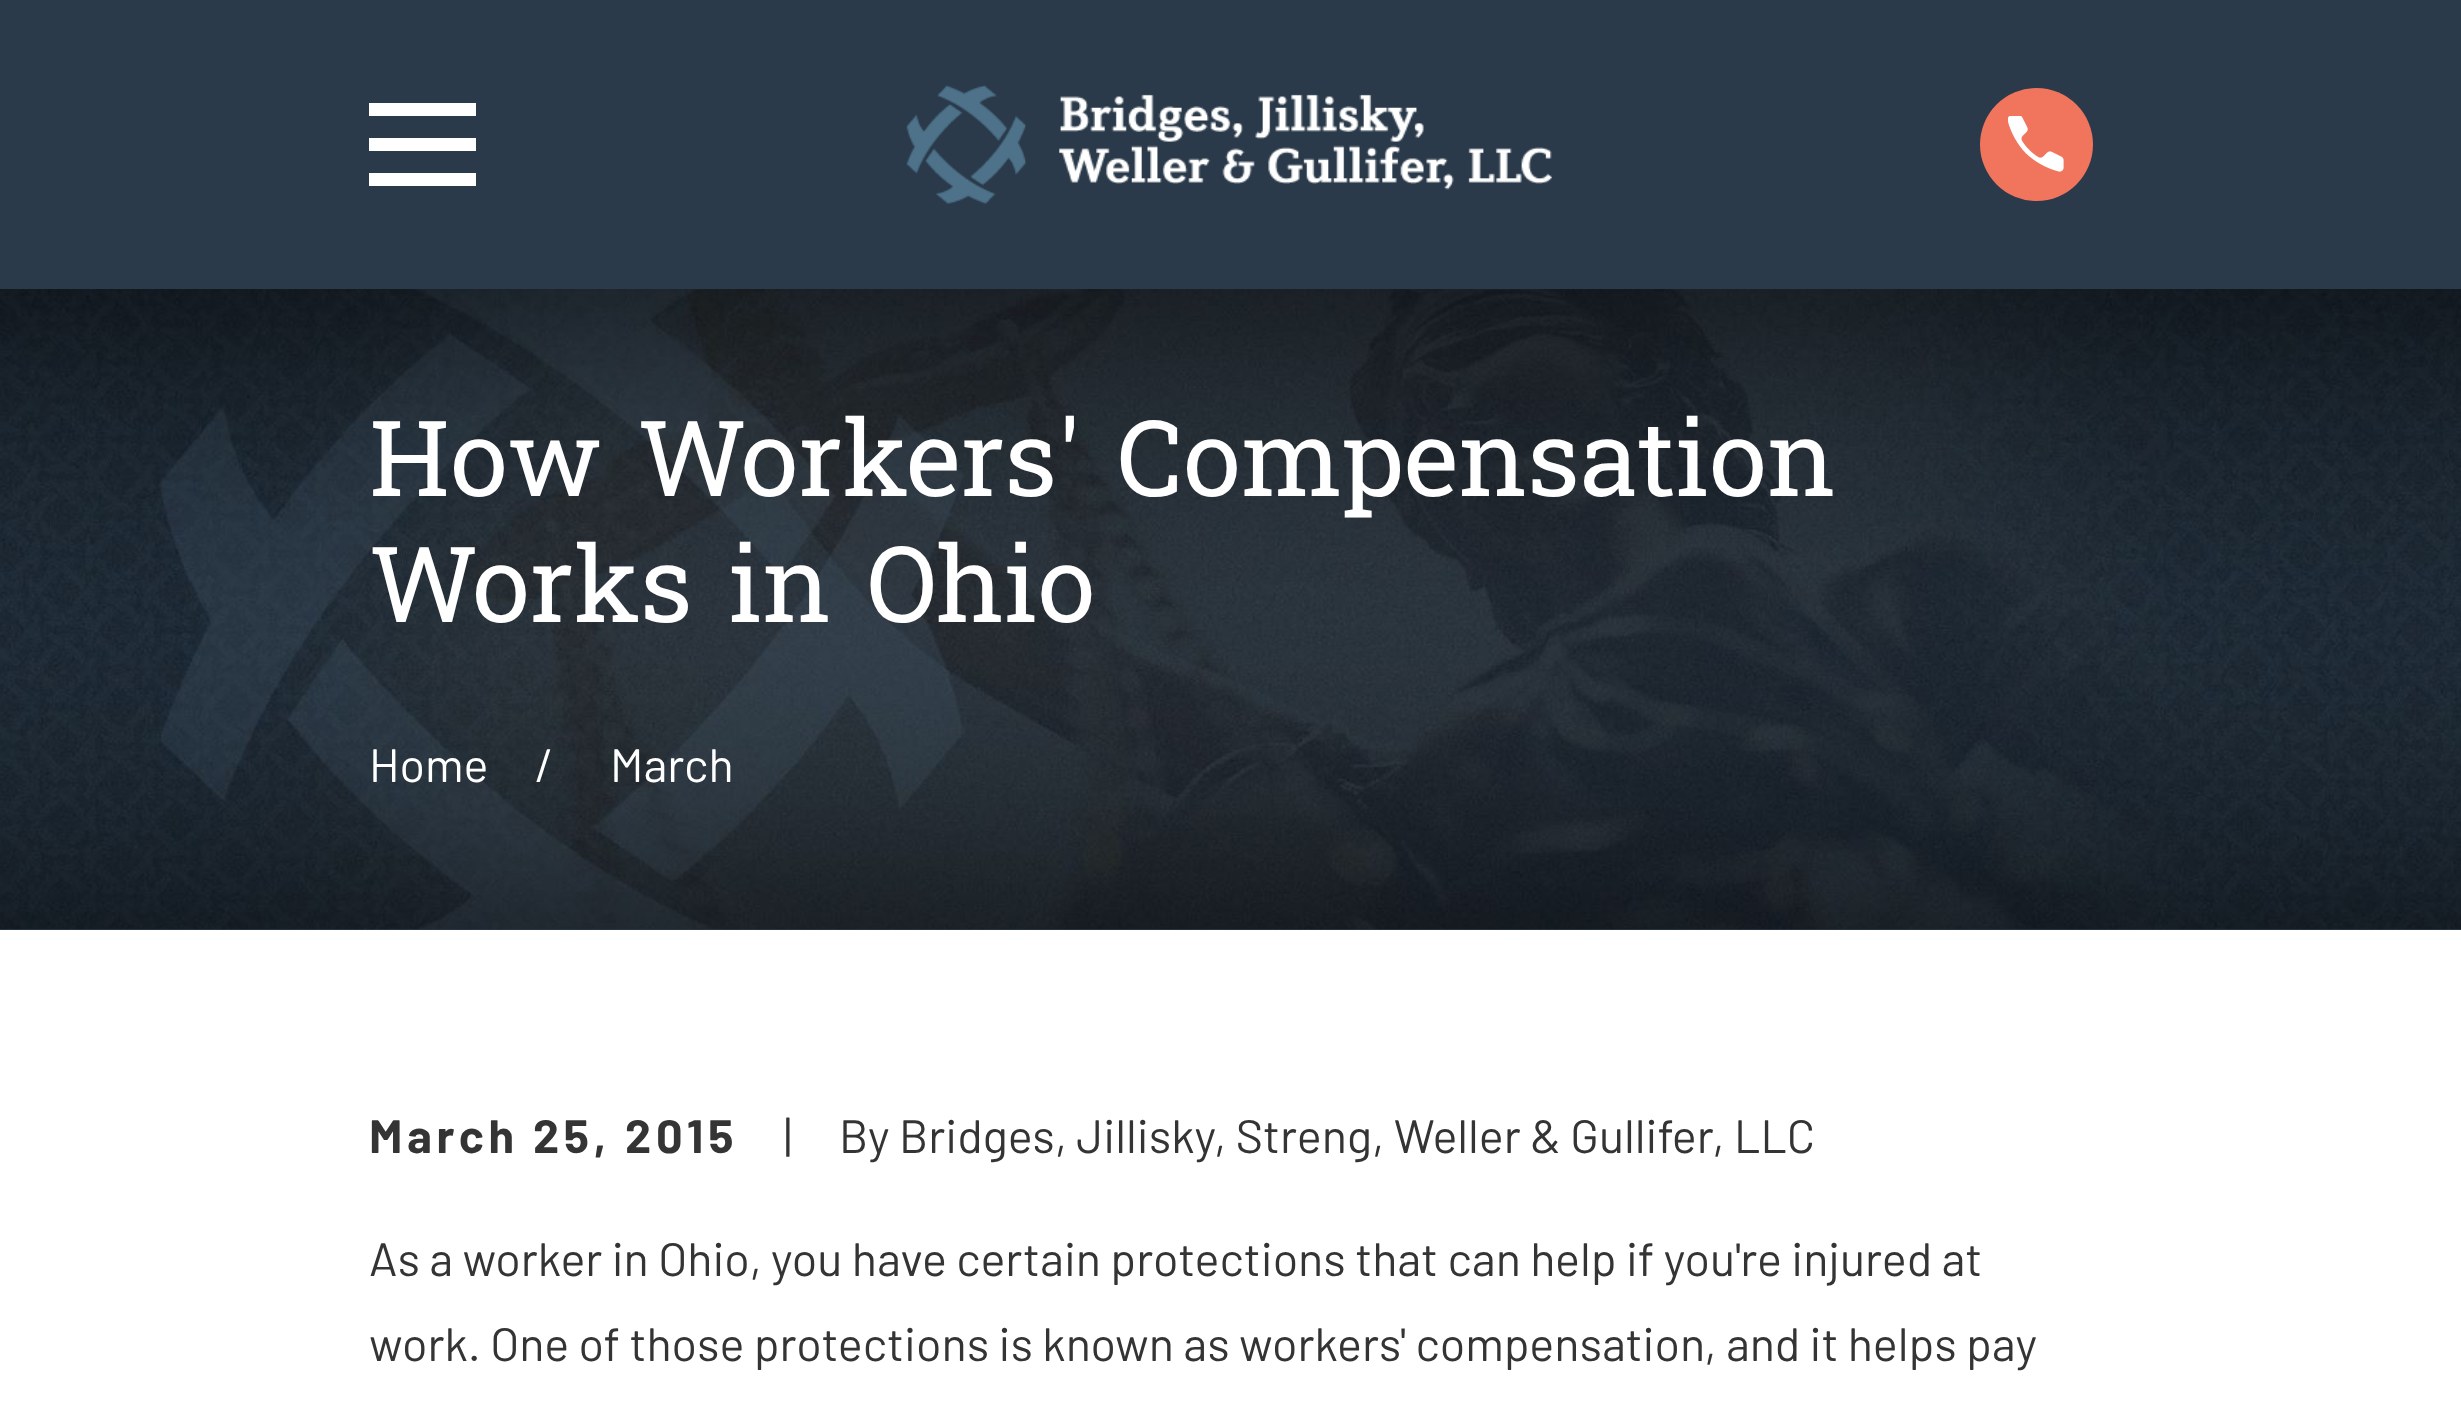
<svg xmlns="http://www.w3.org/2000/svg" width="2461" height="1424" viewBox="0 0 2461 1424">
  <defs>
    <clipPath id="clip1"><rect x="369" y="91" width="107" height="107"/></clipPath>
  </defs>
  <rect width="100%" height="100%" fill="rgb(255,255,255)"/>
  <rect x="0" y="0" width="2461" height="289" fill="rgb(42,58,74)"/>
  <g clip-path="url(#clip1)">
    <path d="M368 103V116H476V103ZM368 138V151H476V138ZM368 173V186H476V173Z" fill="rgb(255,255,255)"/>
  </g>
  <image x="906" y="85" width="646" height="119" href="pic1.png"/>
  <circle cx="2036.5" cy="144.5" r="56.5" fill="rgb(241,117,92)"/>
  <image x="2008" y="116" width="56" height="56" href="pic2.png"/>
  <rect x="0" y="929" width="2461" height="1" fill="rgb(42,58,74)"/>
  <image x="0" y="289" width="2461" height="641" href="pic3.png"/>
  <g font-family="Hanuman" font-size="105.25" fill="rgb(255,255,255)">
    <text>
      <tspan x="369" y="496">How Workers' Compensation</tspan>
      <tspan x="369" y="622">Works in Ohio</tspan>
    </text>
  </g>
  <g font-family="Barlow" font-size="46.75" fill="rgb(255,255,255)">
    <text x="369" y="782">Home</text>
    <text x="535" y="782">/</text>
    <text x="610" y="782">March</text>
  </g>
  <text x="369" y="1153" font-family="Barlow" font-size="46.75" font-weight="bold" letter-spacing="4.75" fill="rgb(52,52,52)">March 25, 2015</text>
  <g font-family="Barlow" font-size="46.75" fill="rgb(52,52,52)">
    <text x="784" y="1153">|</text>
    <text x="839" y="1153">By Bridges, Jillisky, Streng, Weller &amp; Gullifer, LLC</text>
    <text>
      <tspan x="369" y="1276">As a worker in Ohio, you have certain protections that can help if you're injured at</tspan>
      <tspan x="369" y="1361">work. One of those protections is known as workers' compensation, and it helps pay</tspan>
    </text>
  </g>
</svg>
